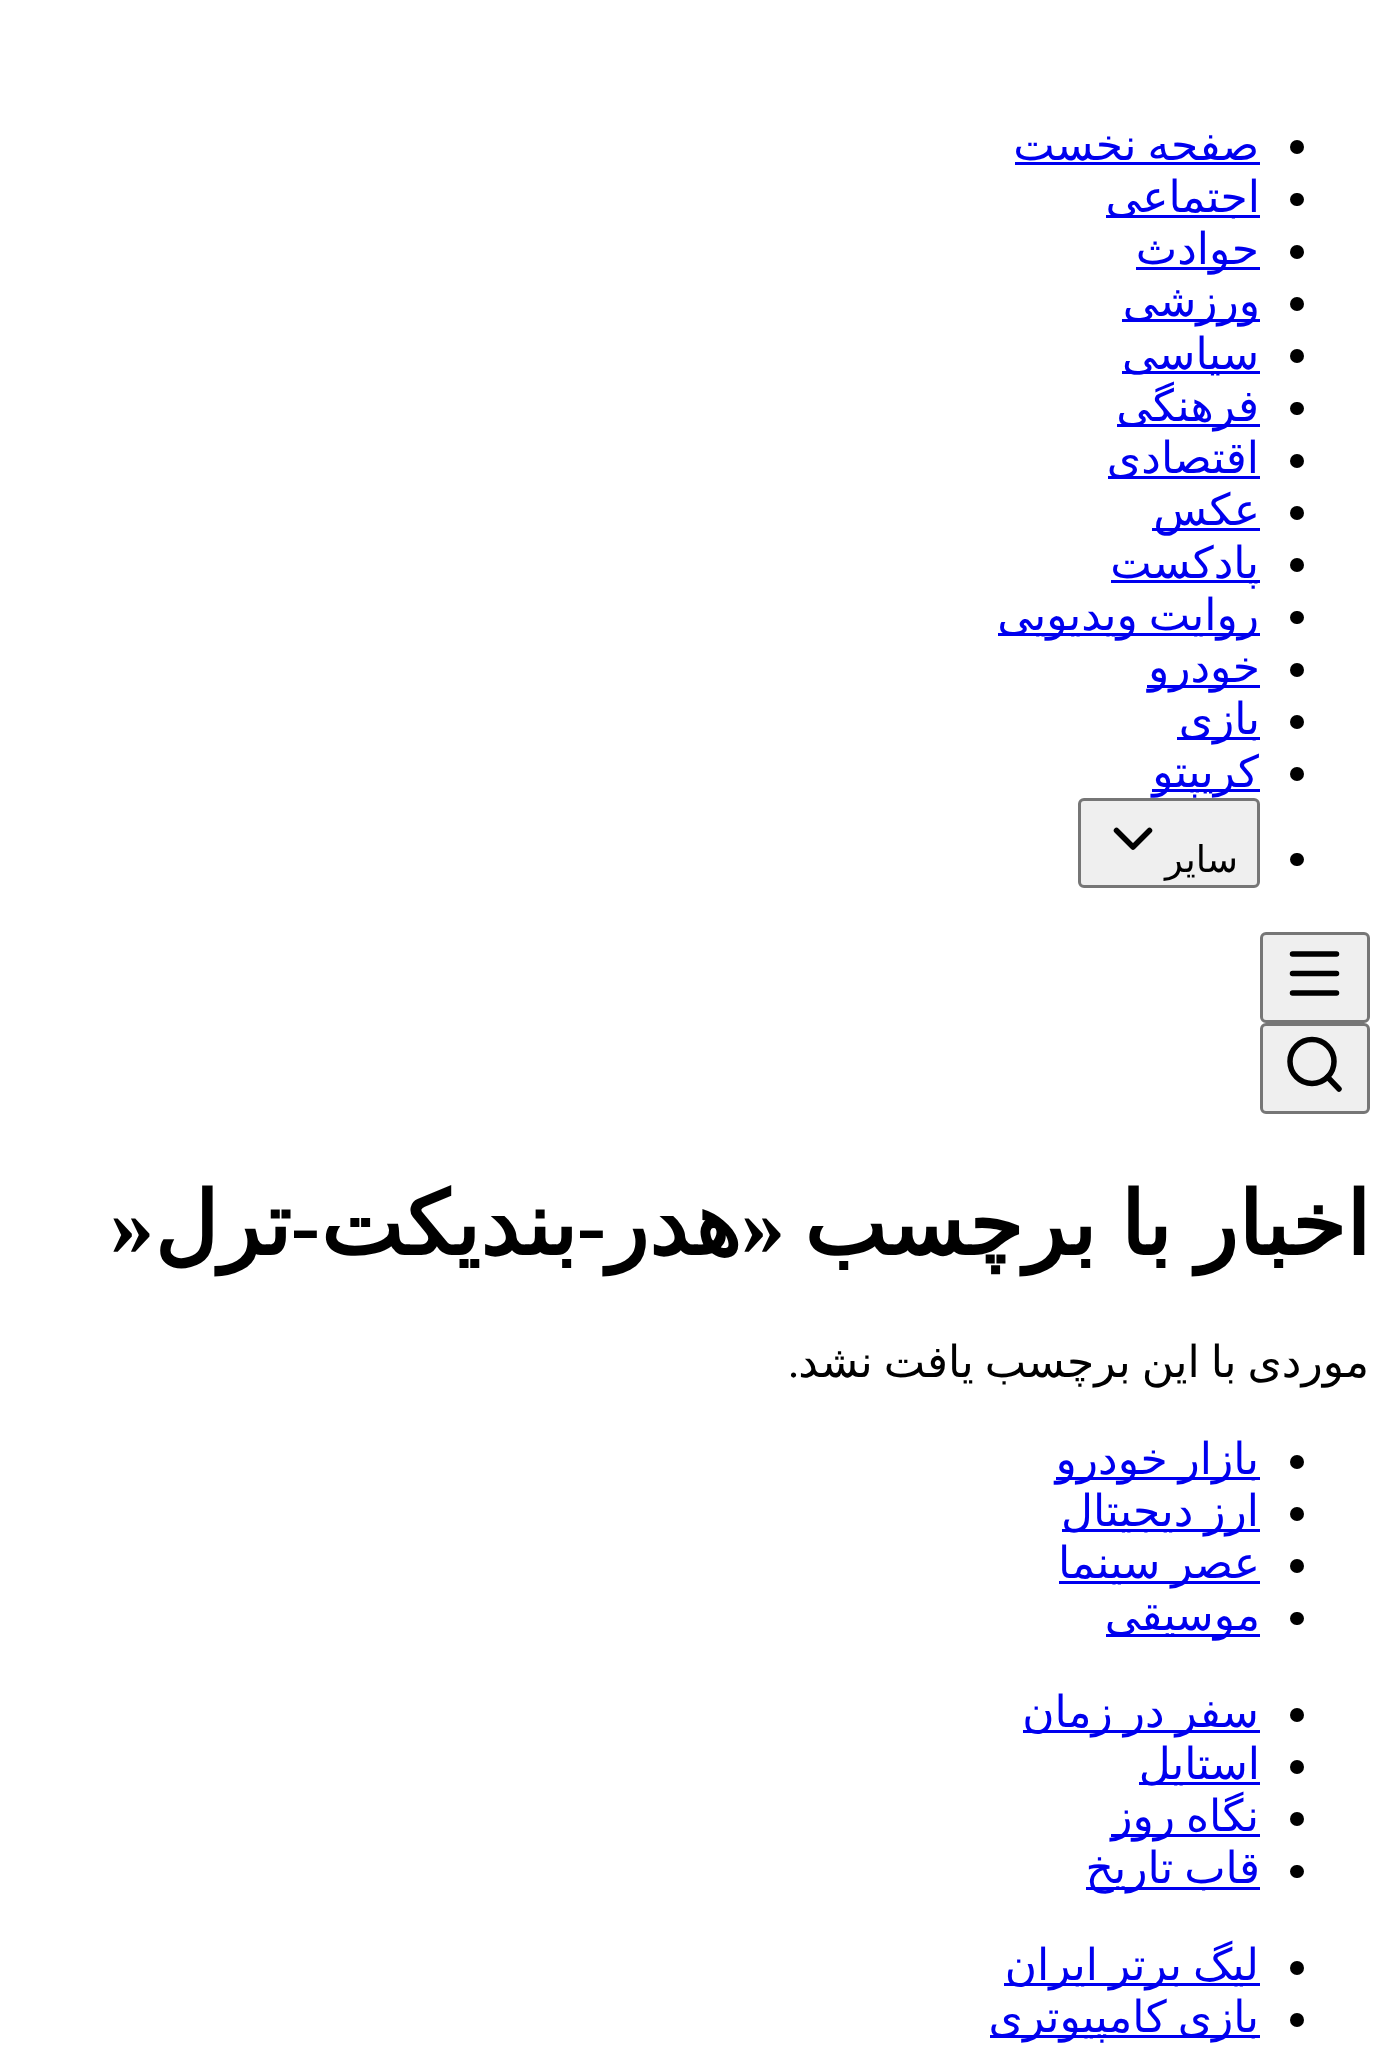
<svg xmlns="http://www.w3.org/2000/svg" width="1390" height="2045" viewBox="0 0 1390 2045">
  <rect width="100%" height="100%" fill="rgb(255,255,255)"/>
  <circle cx="1297" cy="147" r="7" fill="rgb(0,0,0)"/>
  <text x="1259" y="160" word-spacing="-3" font-family="DejaVu Sans" font-size="44" direction="rtl" fill="rgb(0,0,238)">صفحه نخست</text>
  <rect x="1015" y="162" width="245" height="3" fill="rgb(0,0,238)"/>
  <rect x="1290" y="193" width="14" height="13" rx="6.5" fill="rgb(0,0,0)"/>
  <rect x="1106" y="215" width="154" height="3" fill="rgb(0,0,238)"/>
  <text x="1260" y="212" font-family="DejaVu Sans" font-size="44" direction="rtl" fill="rgb(0,0,238)">اجتماعی</text>
  <circle cx="1297" cy="252" r="7" fill="rgb(0,0,0)"/>
  <rect x="1136" y="267" width="124" height="3" fill="rgb(0,0,238)"/>
  <text x="1259" y="264" font-family="DejaVu Sans" font-size="44" direction="rtl" fill="rgb(0,0,238)">حوادث</text>
  <circle cx="1297" cy="304" r="7" fill="rgb(0,0,0)"/>
  <rect x="1122" y="319" width="138" height="3" fill="rgb(0,0,238)"/>
  <text x="1260" y="316" font-family="DejaVu Sans" font-size="44" direction="rtl" fill="rgb(0,0,238)">ورزشی</text>
  <circle cx="1297" cy="356" r="7" fill="rgb(0,0,0)"/>
  <rect x="1122" y="371" width="138" height="3" fill="rgb(0,0,238)"/>
  <text x="1259" y="369" font-family="DejaVu Sans" font-size="44" direction="rtl" fill="rgb(0,0,238)">سیاسی</text>
  <rect x="1290" y="402" width="14" height="13" rx="6.5" fill="rgb(0,0,0)"/>
  <rect x="1117" y="424" width="143" height="3" fill="rgb(0,0,238)"/>
  <text x="1259" y="421" font-family="DejaVu Sans" font-size="44" direction="rtl" fill="rgb(0,0,238)">فرهنگی</text>
  <circle cx="1297" cy="461" r="7" fill="rgb(0,0,0)"/>
  <rect x="1108" y="476" width="152" height="3" fill="rgb(0,0,238)"/>
  <text x="1259" y="473" font-family="DejaVu Sans" font-size="44" direction="rtl" fill="rgb(0,0,238)">اقتصادی</text>
  <circle cx="1297" cy="513" r="7" fill="rgb(0,0,0)"/>
  <rect x="1152" y="528" width="108" height="3" fill="rgb(0,0,238)"/>
  <text x="1260" y="525" font-family="DejaVu Sans" font-size="44" direction="rtl" fill="rgb(0,0,238)">عکس</text>
  <circle cx="1297" cy="565" r="7" fill="rgb(0,0,0)"/>
  <rect x="1111" y="580" width="149" height="3" fill="rgb(0,0,238)"/>
  <text x="1259" y="578" font-family="DejaVu Sans" font-size="44" direction="rtl" fill="rgb(0,0,238)">پادکست</text>
  <rect x="1290" y="611" width="14" height="13" rx="6.5" fill="rgb(0,0,0)"/>
  <rect x="998" y="633" width="262" height="3" fill="rgb(0,0,238)"/>
  <text x="1259" y="630" word-spacing="-3" font-family="DejaVu Sans" font-size="44" direction="rtl" fill="rgb(0,0,238)">روایت ویدیویی</text>
  <circle cx="1297" cy="670" r="7" fill="rgb(0,0,0)"/>
  <rect x="1147" y="685" width="113" height="3" fill="rgb(0,0,238)"/>
  <text x="1260" y="682" font-family="DejaVu Sans" font-size="44" direction="rtl" fill="rgb(0,0,238)">خودرو</text>
  <circle cx="1297" cy="722" r="7" fill="rgb(0,0,0)"/>
  <rect x="1177" y="737" width="83" height="3" fill="rgb(0,0,238)"/>
  <text x="1260" y="734" font-family="DejaVu Sans" font-size="44" direction="rtl" fill="rgb(0,0,238)">بازی</text>
  <circle cx="1297" cy="774" r="7" fill="rgb(0,0,0)"/>
  <rect x="1152" y="789" width="108" height="3" fill="rgb(0,0,238)"/>
  <text x="1259" y="787" font-family="DejaVu Sans" font-size="44" direction="rtl" fill="rgb(0,0,238)">کریپتو</text>
  <rect x="1290" y="853" width="14" height="13" rx="6.5" fill="rgb(0,0,0)"/>
  <rect x="1079.5" y="799.5" width="179" height="87" rx="4.5" fill="rgb(239,239,239)" stroke="rgb(118,118,118)" stroke-width="3"/>
  <path d="M1116.5 830.5L1133 847L1149.5 830.5" fill="none" stroke="rgb(0,0,0)" stroke-width="5.5" stroke-linecap="round" stroke-linejoin="round"/>
  <text x="1238" y="872" font-family="DejaVu Sans" font-size="37" direction="rtl" fill="rgb(0,0,0)">سایر</text>
  <rect x="1261.5" y="933.5" width="107" height="88" rx="4.5" fill="rgb(239,239,239)" stroke="rgb(118,118,118)" stroke-width="3"/>
  <path d="M1292.5 954H1336.5M1292.5 973.5H1336.5M1292.5 993H1336.5" fill="none" stroke="rgb(0,0,0)" stroke-width="5.5" stroke-linecap="round" stroke-linejoin="round"/>
  <rect x="1261.5" y="1024.5" width="107" height="88" rx="4.5" fill="rgb(239,239,239)" stroke="rgb(118,118,118)" stroke-width="3"/>
  <path d="M1339 1089L1327.5 1077" fill="none" stroke="rgb(0,0,0)" stroke-width="5.5" stroke-linecap="round" stroke-linejoin="round"/>
  <circle cx="1312" cy="1061.5" r="22" fill="none" stroke="rgb(0,0,0)" stroke-width="5.5"/>
  <text x="1370" y="1255" word-spacing="-4" font-family="DejaVu Sans" font-size="88" font-weight="bold" direction="rtl" fill="rgb(0,0,0)">اخبار با برچسب</text>
  <g font-family="Liberation Serif" font-size="88" font-weight="bold" direction="rtl" fill="rgb(0,0,0)">
    <text x="785" y="1255">«</text>
    <text x="606" y="1255">-</text>
  </g>
  <g font-family="DejaVu Sans" font-size="88" font-weight="bold" direction="rtl" fill="rgb(0,0,0)">
    <text x="741" y="1255">هدر</text>
    <text x="577" y="1255">بندیکت</text>
  </g>
  <text x="320" y="1255" font-family="Liberation Serif" font-size="88" font-weight="bold" direction="rtl" fill="rgb(0,0,0)">-</text>
  <text x="291" y="1255" font-family="DejaVu Sans" font-size="88" font-weight="bold" direction="rtl" fill="rgb(0,0,0)">ترل</text>
  <text x="110" y="1255" font-family="Liberation Serif" font-size="88" font-weight="bold" fill="rgb(0,0,0)">»</text>
  <text x="1369" y="1377" word-spacing="-3" font-family="DejaVu Sans" font-size="44" direction="rtl" fill="rgb(0,0,0)">موردی با این برچسب یافت نشد</text>
  <text x="799" y="1377" font-family="Liberation Serif" font-size="44" direction="rtl" fill="rgb(0,0,0)">.</text>
  <circle cx="1297" cy="1462" r="7" fill="rgb(0,0,0)"/>
  <rect x="1056" y="1477" width="204" height="3" fill="rgb(0,0,238)"/>
  <text x="1259" y="1474" word-spacing="-3" font-family="DejaVu Sans" font-size="44" direction="rtl" fill="rgb(0,0,238)">بازار خودرو</text>
  <circle cx="1297" cy="1514" r="7" fill="rgb(0,0,0)"/>
  <rect x="1062" y="1529" width="198" height="3" fill="rgb(0,0,238)"/>
  <text x="1259" y="1526" word-spacing="-3" font-family="DejaVu Sans" font-size="44" direction="rtl" fill="rgb(0,0,238)">ارز دیجیتال</text>
  <circle cx="1297" cy="1566" r="7" fill="rgb(0,0,0)"/>
  <rect x="1059" y="1581" width="201" height="3" fill="rgb(0,0,238)"/>
  <text x="1260" y="1578" word-spacing="-3" font-family="DejaVu Sans" font-size="44" direction="rtl" fill="rgb(0,0,238)">عصر سینما</text>
  <rect x="1290" y="1612" width="14" height="13" rx="6.5" fill="rgb(0,0,0)"/>
  <rect x="1106" y="1634" width="154" height="3" fill="rgb(0,0,238)"/>
  <text x="1260" y="1630" font-family="DejaVu Sans" font-size="44" direction="rtl" fill="rgb(0,0,238)">موسیقی</text>
  <circle cx="1297" cy="1715" r="7" fill="rgb(0,0,0)"/>
  <rect x="1023" y="1730" width="237" height="3" fill="rgb(0,0,238)"/>
  <text x="1259" y="1727" word-spacing="-3" font-family="DejaVu Sans" font-size="44" direction="rtl" fill="rgb(0,0,238)">سفر در زمان</text>
  <circle cx="1297" cy="1767" r="7" fill="rgb(0,0,0)"/>
  <rect x="1139" y="1782" width="121" height="3" fill="rgb(0,0,238)"/>
  <text x="1260" y="1779" font-family="DejaVu Sans" font-size="44" direction="rtl" fill="rgb(0,0,238)">استایل</text>
  <circle cx="1297" cy="1819" r="7" fill="rgb(0,0,0)"/>
  <rect x="1111" y="1834" width="149" height="3" fill="rgb(0,0,238)"/>
  <text x="1259" y="1831" word-spacing="-3" font-family="DejaVu Sans" font-size="44" direction="rtl" fill="rgb(0,0,238)">نگاه روز</text>
  <rect x="1290" y="1865" width="14" height="13" rx="6.5" fill="rgb(0,0,0)"/>
  <rect x="1086" y="1887" width="174" height="3" fill="rgb(0,0,238)"/>
  <text x="1260" y="1883" word-spacing="-3" font-family="DejaVu Sans" font-size="44" direction="rtl" fill="rgb(0,0,238)">قاب تاریخ</text>
  <circle cx="1297" cy="1968" r="7" fill="rgb(0,0,0)"/>
  <rect x="1004" y="1983" width="256" height="3" fill="rgb(0,0,238)"/>
  <text x="1259" y="1980" word-spacing="-3" font-family="DejaVu Sans" font-size="44" direction="rtl" fill="rgb(0,0,238)">لیگ برتر ایران</text>
  <circle cx="1297" cy="2020" r="7" fill="rgb(0,0,0)"/>
  <rect x="990" y="2035" width="270" height="3" fill="rgb(0,0,238)"/>
  <text x="1259" y="2032" word-spacing="-3" font-family="DejaVu Sans" font-size="44" direction="rtl" fill="rgb(0,0,238)">بازی کامپیوتری</text>
</svg>
